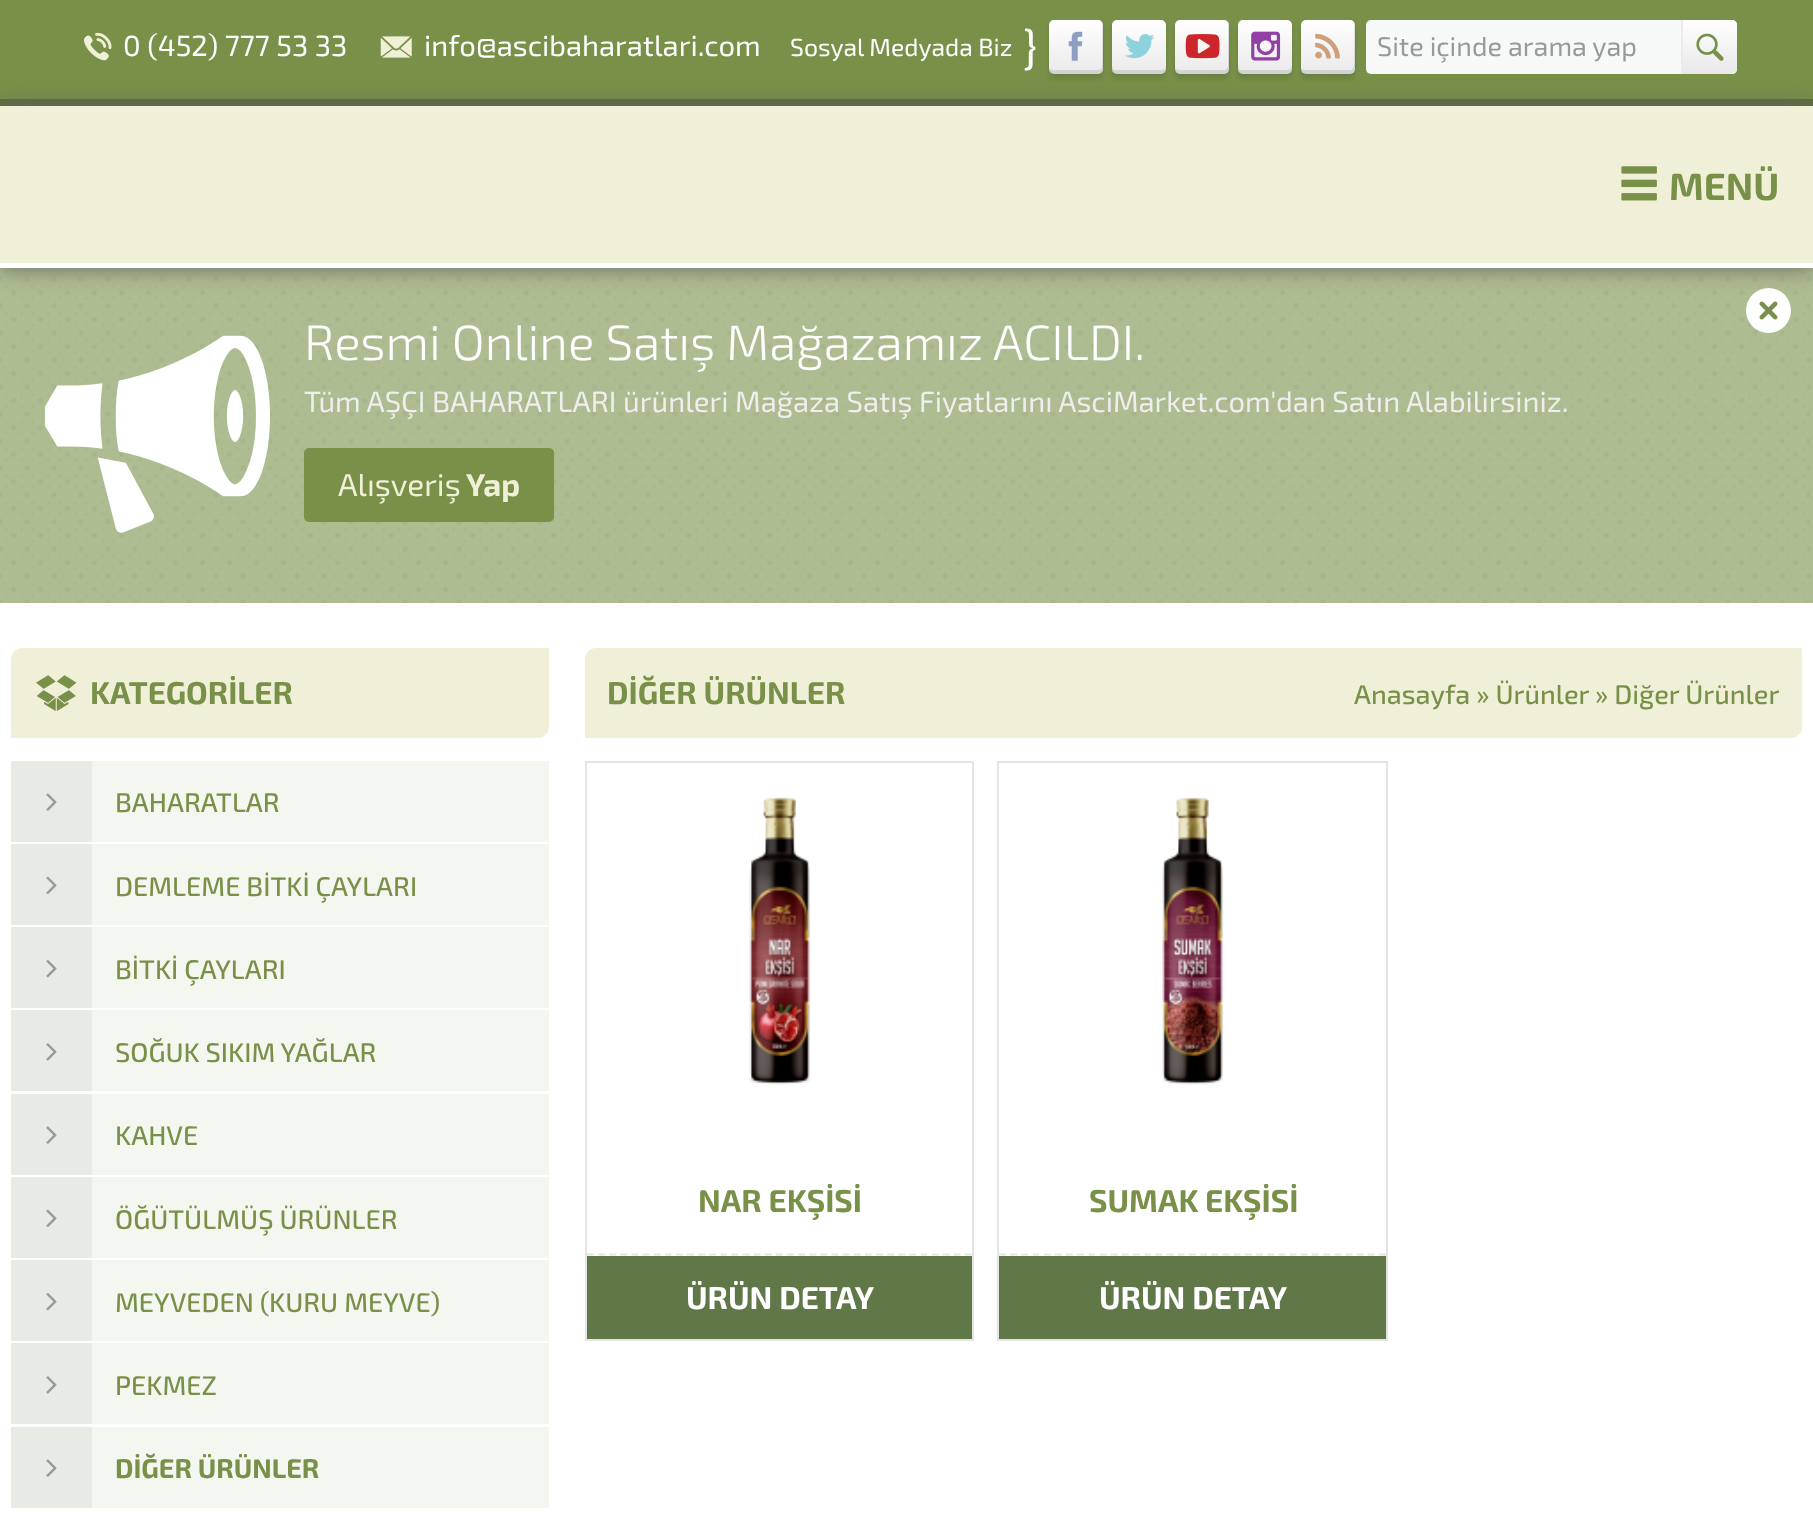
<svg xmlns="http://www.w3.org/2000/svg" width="1813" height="1524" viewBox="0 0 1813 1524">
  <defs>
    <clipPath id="clip1"><path d="M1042 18H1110V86H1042ZM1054 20H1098C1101 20 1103 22 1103 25V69C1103 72 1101 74 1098 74H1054C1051 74 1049 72 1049 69V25C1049 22 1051 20 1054 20Z" clip-rule="evenodd"/></clipPath>
    <linearGradient id="g1" gradientUnits="userSpaceOnUse" x1="1076" y1="74" x2="1076" y2="20"><stop offset="0" stop-color="rgb(234,234,234)"/><stop offset="1" stop-color="rgb(255,255,255)"/></linearGradient>
    <linearGradient id="g2" gradientUnits="userSpaceOnUse" x1="1139" y1="74" x2="1139" y2="20"><stop offset="0" stop-color="rgb(234,234,234)"/><stop offset="1" stop-color="rgb(255,255,255)"/></linearGradient>
    <linearGradient id="g3" gradientUnits="userSpaceOnUse" x1="1202" y1="74" x2="1202" y2="20"><stop offset="0" stop-color="rgb(234,234,234)"/><stop offset="1" stop-color="rgb(255,255,255)"/></linearGradient>
    <linearGradient id="g4" gradientUnits="userSpaceOnUse" x1="1265" y1="74" x2="1265" y2="20"><stop offset="0" stop-color="rgb(234,234,234)"/><stop offset="1" stop-color="rgb(255,255,255)"/></linearGradient>
    <linearGradient id="g5" gradientUnits="userSpaceOnUse" x1="1328" y1="74" x2="1328" y2="20"><stop offset="0" stop-color="rgb(234,234,234)"/><stop offset="1" stop-color="rgb(255,255,255)"/></linearGradient>
    <linearGradient id="g6" gradientUnits="userSpaceOnUse" x1="1710" y1="20" x2="1710" y2="74"><stop offset="0" stop-color="rgb(255,255,255)"/><stop offset="1" stop-color="rgb(234,232,232)"/></linearGradient>
    <clipPath id="clip2"><path d="M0 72H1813V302H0ZM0 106H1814V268H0Z" clip-rule="evenodd"/></clipPath>
  </defs>
  <rect width="100%" height="100%" fill="rgb(255,255,255)"/>
  <rect x="0" y="106" width="1813" height="157" fill="rgb(240,240,216)"/>
  <rect x="0" y="0" width="1813" height="99" fill="rgb(120,144,72)"/>
  <rect x="0" y="99" width="1813" height="7" fill="rgb(90,108,54)"/>
  <image x="84" y="32" width="28" height="29" href="pic1.png"/>
  <text x="123" y="56" font-family="'Exo 2'" font-size="29.25" fill="rgb(255,255,255)">0 (452) 777 53 33</text>
  <image x="380" y="36" width="32" height="22" href="pic2.png"/>
  <text x="424" y="56" font-family="'Exo 2'" font-size="29.25" fill="rgb(255,255,255)">info@ascibaharatlari.com</text>
  <text x="790" y="56" font-family="'Exo 2'" font-size="24.75" fill="rgb(255,255,255)">Sosyal Medyada Biz</text>
  <text x="1023" y="63" font-family="'Exo 2'" font-size="45" fill="rgb(255,255,255)">}</text>
  <g clip-path="url(#clip1)">
    <rect x="1049" y="25" width="54" height="54" rx="5" fill="rgba(0,0,0,0.1)" filter="blur(2px)"/>
  </g>
  <rect x="1049" y="20" width="54" height="54" rx="5" fill="url(#g1)"/>
  <path d="M1049 68C1049 76 1055 74 1061 74H1076C1108 74 1103 79 1103 47V32C1103 30 1104 25 1102 22V65C1102 68 1100 70 1098 70H1053C1052 70 1050 69 1049 68Z" fill="rgba(0,0,0,0.1)"/>
  <image x="1068" y="31" width="15" height="30" href="pic3.png"/>
  <rect x="1112" y="25" width="54" height="54" rx="5" fill="rgba(0,0,0,0.1)" filter="blur(2px)"/>
  <rect x="1112" y="20" width="54" height="54" rx="5" fill="url(#g2)"/>
  <path d="M1112 65C1112 75 1115 74 1124 74H1154C1163 74 1166 75 1166 65C1166 68 1163 70 1161 70H1116C1114 70 1112 68 1112 65Z" fill="rgba(0,0,0,0.1)"/>
  <image x="1125" y="34" width="30" height="25" href="pic4.png"/>
  <rect x="1175" y="25" width="54" height="54" rx="5" fill="rgba(0,0,0,0.1)" filter="blur(2px)"/>
  <rect x="1175" y="20" width="54" height="54" rx="5" fill="url(#g3)"/>
  <path d="M1175 68C1175 76 1181 74 1187 74H1202C1234 74 1229 79 1229 47V32C1229 30 1230 25 1228 22V65C1228 68 1226 70 1224 70H1179C1178 70 1176 69 1175 68Z" fill="rgba(0,0,0,0.1)"/>
  <image x="1185" y="34" width="35" height="25" href="pic5.png"/>
  <rect x="1238" y="25" width="54" height="54" rx="5" fill="rgba(0,0,0,0.1)" filter="blur(2px)"/>
  <rect x="1238" y="20" width="54" height="54" rx="5" fill="url(#g4)"/>
  <path d="M1238 65C1238 75 1241 74 1250 74H1280C1289 74 1292 75 1292 65C1292 68 1289 70 1287 70H1242C1240 70 1238 68 1238 65Z" fill="rgba(0,0,0,0.1)"/>
  <image x="1251" y="31" width="30" height="30" href="pic6.png"/>
  <rect x="1301" y="25" width="54" height="54" rx="5" fill="rgba(0,0,0,0.1)" filter="blur(2px)"/>
  <rect x="1301" y="20" width="54" height="54" rx="5" fill="url(#g5)"/>
  <path d="M1301 68C1301 76 1307 74 1313 74H1328C1360 74 1355 79 1355 47V32C1355 30 1356 25 1354 22V65C1354 68 1352 70 1350 70H1305C1304 70 1302 69 1301 68Z" fill="rgba(0,0,0,0.1)"/>
  <image x="1315" y="33" width="25" height="26" href="pic7.png"/>
  <rect x="1366" y="20" width="371" height="54" rx="5" fill="rgb(247,248,248)"/>
  <text x="1377" y="56" font-family="'Exo 2'" font-size="27" fill="rgb(153,153,153)">Site içinde arama yap</text>
  <path d="M1681 20H1732C1735 20 1737 22 1737 25V69C1737 72 1735 74 1732 74H1681Z" fill="url(#g6)"/>
  <rect x="1681" y="20" width="2" height="54" fill="rgb(236,235,235)"/>
  <image x="1696" y="33" width="28" height="28" href="pic8.png"/>
  <rect x="0" y="268" width="1813" height="335" fill="rgb(174,188,145)"/>
  <image x="0" y="270" width="1811" height="333" href="pic11.png"/>
  <circle cx="1768.5" cy="310.5" r="22.5" fill="rgb(255,255,255)"/>
  <image x="1759" y="301" width="19" height="19" href="pic10.png"/>
  <g clip-path="url(#clip2)">
    <rect x="0" y="106" width="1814" height="162" fill="rgb(102,102,102)" filter="blur(11px)"/>
  </g>
  <rect x="0" y="267" width="1813" height="1" fill="rgb(255,255,255)"/>
  <image x="1621" y="166" width="36" height="35" href="pic9.png"/>
  <text x="1669" y="200" font-family="'Exo 2'" font-size="38" font-weight="bold" fill="rgb(120,144,72)">MENÜ</text>
  <image x="45" y="335" width="225" height="198" href="pic12.png"/>
  <text x="304" y="360" font-family="'Exo 2'" font-size="49.5" font-weight="300" fill="rgb(255,255,255)">Resmi Online Satış Mağazamız ACILDI.</text>
  <text x="304" y="412" font-family="'Exo 2'" font-size="29.25" fill="rgb(238,238,238)">Tüm AŞÇI BAHARATLARI ürünleri Mağaza Satış Fiyatlarını AsciMarket.com'dan Satın Alabilirsiniz.</text>
  <rect x="304" y="448" width="250" height="74" rx="5" fill="rgb(120,144,72)"/>
  <text x="338" y="496" font-family="'Exo 2'" font-size="31.5" fill="rgb(240,240,216)">Alışveriş</text>
  <text x="466" y="496" font-family="'Exo 2'" font-size="31.5" font-weight="bold" fill="rgb(240,240,216)">Yap</text>
  <path d="M22 648H549V727C549 733 544 738 538 738H11V659C11 653 16 648 22 648Z" fill="rgb(240,240,216)"/>
  <image x="36" y="675" width="41" height="37" href="pic13.png"/>
  <text x="90" y="704" font-family="'Exo 2'" font-size="31.5" font-weight="bold" fill="rgb(120,144,72)">KATEGORİLER</text>
  <rect x="92" y="761" width="457" height="81" fill="rgb(244,246,240)"/>
  <rect x="11" y="761" width="81" height="81" fill="rgb(232,234,228)"/>
  <image x="46" y="793" width="11" height="18" href="pic14.png"/>
  <text x="115" y="812" font-family="'Exo 2'" font-size="27" font-weight="500" fill="rgb(120,144,72)">BAHARATLAR</text>
  <rect x="92" y="844" width="457" height="81" fill="rgb(244,246,240)"/>
  <rect x="11" y="844" width="81" height="81" fill="rgb(232,234,228)"/>
  <image x="46" y="876" width="11" height="18" href="pic15.png"/>
  <text x="115" y="896" font-family="'Exo 2'" font-size="27" font-weight="500" fill="rgb(120,144,72)">DEMLEME BİTKİ ÇAYLARI</text>
  <rect x="92" y="927" width="457" height="81" fill="rgb(244,246,240)"/>
  <rect x="11" y="927" width="81" height="81" fill="rgb(232,234,228)"/>
  <image x="46" y="960" width="11" height="18" href="pic16.png"/>
  <text x="115" y="979" font-family="'Exo 2'" font-size="27" font-weight="500" fill="rgb(120,144,72)">BİTKİ ÇAYLARI</text>
  <rect x="92" y="1010" width="457" height="81" fill="rgb(244,246,240)"/>
  <rect x="11" y="1010" width="81" height="81" fill="rgb(232,234,228)"/>
  <image x="46" y="1043" width="11" height="18" href="pic17.png"/>
  <text x="115" y="1062" font-family="'Exo 2'" font-size="27" font-weight="500" fill="rgb(120,144,72)">SOĞUK SIKIM YAĞLAR</text>
  <rect x="92" y="1094" width="457" height="81" fill="rgb(244,246,240)"/>
  <rect x="11" y="1094" width="81" height="81" fill="rgb(232,234,228)"/>
  <image x="46" y="1126" width="11" height="18" href="pic14.png"/>
  <text x="115" y="1145" font-family="'Exo 2'" font-size="27" font-weight="500" fill="rgb(120,144,72)">KAHVE</text>
  <rect x="92" y="1177" width="457" height="81" fill="rgb(244,246,240)"/>
  <rect x="11" y="1177" width="81" height="81" fill="rgb(232,234,228)"/>
  <image x="46" y="1209" width="11" height="18" href="pic15.png"/>
  <text x="115" y="1229" font-family="'Exo 2'" font-size="27" font-weight="500" fill="rgb(120,144,72)">ÖĞÜTÜLMÜŞ ÜRÜNLER</text>
  <rect x="92" y="1260" width="457" height="81" fill="rgb(244,246,240)"/>
  <rect x="11" y="1260" width="81" height="81" fill="rgb(232,234,228)"/>
  <image x="46" y="1293" width="11" height="18" href="pic16.png"/>
  <text x="115" y="1312" font-family="'Exo 2'" font-size="27" font-weight="500" fill="rgb(120,144,72)">MEYVEDEN (KURU MEYVE)</text>
  <rect x="92" y="1343" width="457" height="81" fill="rgb(244,246,240)"/>
  <rect x="11" y="1343" width="81" height="81" fill="rgb(232,234,228)"/>
  <image x="46" y="1376" width="11" height="18" href="pic17.png"/>
  <text x="115" y="1395" font-family="'Exo 2'" font-size="27" font-weight="500" fill="rgb(120,144,72)">PEKMEZ</text>
  <rect x="92" y="1427" width="457" height="81" fill="rgb(244,246,240)"/>
  <rect x="11" y="1427" width="81" height="81" fill="rgb(232,234,228)"/>
  <image x="46" y="1459" width="11" height="18" href="pic14.png"/>
  <text x="115" y="1478" font-family="'Exo 2'" font-size="27" font-weight="bold" fill="rgb(120,144,72)">DİĞER ÜRÜNLER</text>
  <path d="M596 648H1802V727C1802 733 1797 738 1791 738H585V659C585 653 590 648 596 648Z" fill="rgb(240,240,216)"/>
  <text x="607" y="704" font-family="'Exo 2'" font-size="31.5" font-weight="bold" fill="rgb(120,144,72)">DİĞER ÜRÜNLER</text>
  <text x="1354" y="704" font-family="'Exo 2'" font-size="27" font-weight="500" fill="rgb(120,144,72)">Anasayfa » Ürünler » Diğer Ürünler</text>
  <rect x="586" y="762" width="387" height="578" fill="none" stroke="rgb(228,228,228)" stroke-width="2"/>
  <image x="749" y="797" width="62" height="288" href="pic18.png"/>
  <path d="M587 1254.5H972" fill="none" stroke="rgb(228,228,228)" stroke-width="2.2" stroke-dasharray="6.75 4.37"/>
  <text x="698" y="1212" font-family="'Exo 2'" font-size="31.5" font-weight="bold" fill="rgb(120,144,72)">NAR EKŞİSİ</text>
  <rect x="587" y="1256" width="385" height="83" fill="rgb(96,120,72)"/>
  <text x="686" y="1309" font-family="'Exo 2'" font-size="31.5" font-weight="bold" fill="rgb(255,255,255)">ÜRÜN DETAY</text>
  <rect x="998" y="762" width="389" height="578" fill="none" stroke="rgb(228,228,228)" stroke-width="2"/>
  <image x="1162" y="797" width="62" height="288" href="pic19.png"/>
  <path d="M999 1254.5H1386" fill="none" stroke="rgb(228,228,228)" stroke-width="2.2" stroke-dasharray="6.75 4.43"/>
  <text x="1089" y="1212" font-family="'Exo 2'" font-size="31.5" font-weight="bold" fill="rgb(120,144,72)">SUMAK EKŞİSİ</text>
  <rect x="999" y="1256" width="387" height="83" fill="rgb(96,120,72)"/>
  <text x="1099" y="1309" font-family="'Exo 2'" font-size="31.5" font-weight="bold" fill="rgb(255,255,255)">ÜRÜN DETAY</text>
</svg>
